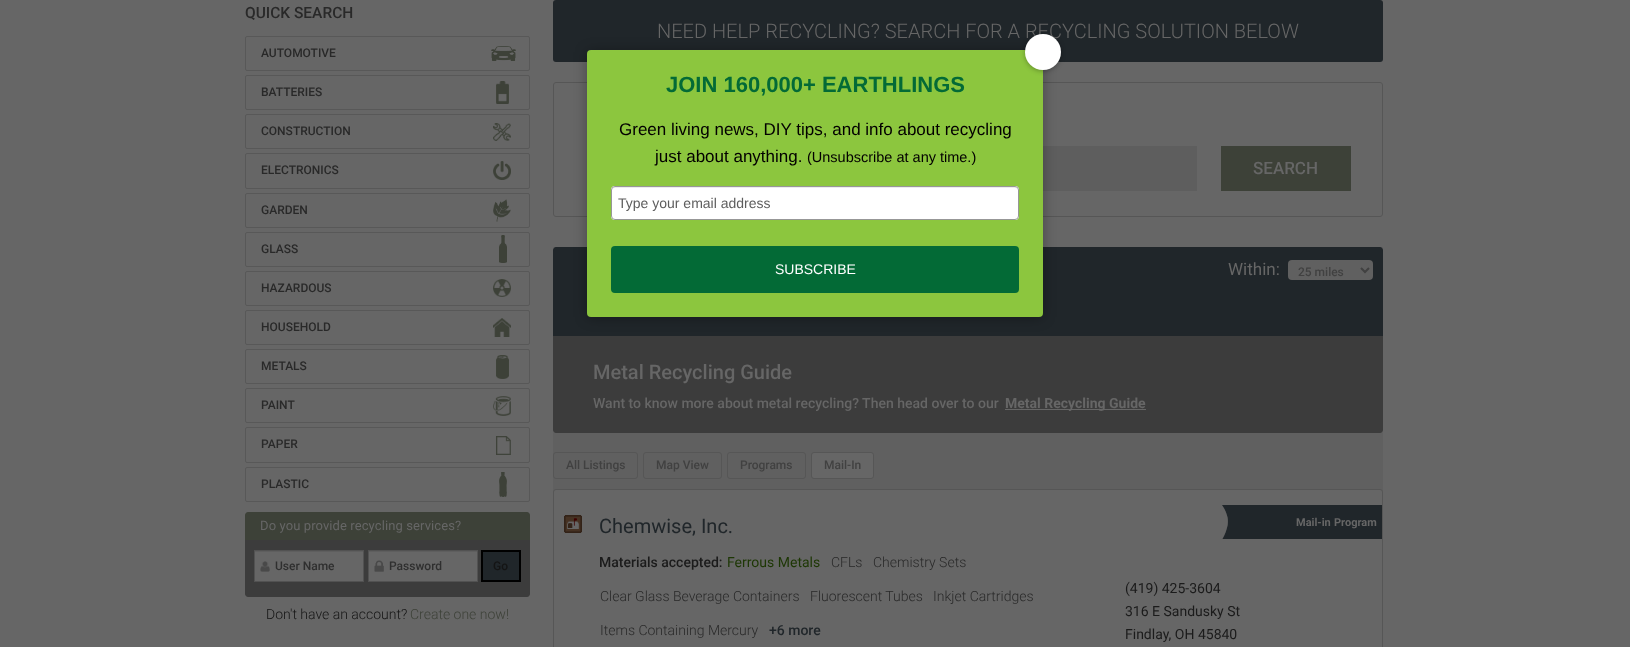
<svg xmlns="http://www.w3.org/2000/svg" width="1630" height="647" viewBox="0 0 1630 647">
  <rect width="100%" height="100%" fill="rgb(102,102,102)"/>
  <text x="245" y="18" font-family="Roboto" font-size="15.5" font-weight="500" fill="rgb(41,41,41)">QUICK SEARCH</text>
  <image x="491" y="46" width="25" height="15" href="pic1.png"/>
  <rect x="245.5" y="36.5" width="284" height="34" rx="1.5" fill="none" stroke="rgb(88,88,88)"/>
  <text x="261" y="57" font-family="Roboto" font-size="12" font-weight="500" fill="rgb(41,41,41)">AUTOMOTIVE</text>
  <image x="496" y="81" width="13" height="23" href="pic2.png"/>
  <rect x="245.5" y="75.5" width="284" height="34" rx="1.5" fill="none" stroke="rgb(88,88,88)"/>
  <text x="261" y="96" font-family="Roboto" font-size="12" font-weight="500" fill="rgb(41,41,41)">BATTERIES</text>
  <image x="493" y="123" width="18" height="18" href="pic3.png"/>
  <rect x="245.5" y="114.5" width="284" height="34" rx="1.5" fill="none" stroke="rgb(88,88,88)"/>
  <text x="261" y="135" font-family="Roboto" font-size="12" font-weight="500" fill="rgb(41,41,41)">CONSTRUCTION</text>
  <image x="493" y="161" width="18" height="19" href="pic4.png"/>
  <rect x="245.5" y="153.5" width="284" height="35" rx="1.5" fill="none" stroke="rgb(88,88,88)"/>
  <text x="261" y="174" font-family="Roboto" font-size="12" font-weight="500" fill="rgb(41,41,41)">ELECTRONICS</text>
  <image x="493" y="199" width="18" height="23" href="pic5.png"/>
  <rect x="245.5" y="193.5" width="284" height="34" rx="1.5" fill="none" stroke="rgb(88,88,88)"/>
  <text x="261" y="214" font-family="Roboto" font-size="12" font-weight="500" fill="rgb(41,41,41)">GARDEN</text>
  <image x="499" y="235" width="8" height="28" href="pic6.png"/>
  <rect x="245.5" y="232.5" width="284" height="34" rx="1.5" fill="none" stroke="rgb(88,88,88)"/>
  <text x="261" y="253" font-family="Roboto" font-size="12" font-weight="500" fill="rgb(41,41,41)">GLASS</text>
  <image x="493" y="279" width="18" height="18" href="pic7.png"/>
  <rect x="245.5" y="271.5" width="284" height="34" rx="1.5" fill="none" stroke="rgb(88,88,88)"/>
  <text x="261" y="292" font-family="Roboto" font-size="12" font-weight="500" fill="rgb(41,41,41)">HAZARDOUS</text>
  <image x="493" y="318" width="18" height="19" href="pic8.png"/>
  <rect x="245.5" y="310.5" width="284" height="34" rx="1.5" fill="none" stroke="rgb(88,88,88)"/>
  <text x="261" y="331" font-family="Roboto" font-size="12" font-weight="500" fill="rgb(41,41,41)">HOUSEHOLD</text>
  <image x="496" y="355" width="13" height="24" href="pic9.png"/>
  <rect x="245.5" y="349.5" width="284" height="34" rx="1.5" fill="none" stroke="rgb(88,88,88)"/>
  <text x="261" y="370" font-family="Roboto" font-size="12" font-weight="500" fill="rgb(41,41,41)">METALS</text>
  <image x="493" y="396" width="18" height="20" href="pic10.png"/>
  <rect x="245.5" y="388.5" width="284" height="34" rx="1.5" fill="none" stroke="rgb(88,88,88)"/>
  <text x="261" y="409" font-family="Roboto" font-size="12" font-weight="500" fill="rgb(41,41,41)">PAINT</text>
  <image x="496" y="436" width="15" height="19" href="pic11.png"/>
  <rect x="245.5" y="427.5" width="284" height="35" rx="1.5" fill="none" stroke="rgb(88,88,88)"/>
  <text x="261" y="448" font-family="Roboto" font-size="12" font-weight="500" fill="rgb(41,41,41)">PAPER</text>
  <image x="499" y="472" width="8" height="25" href="pic12.png"/>
  <rect x="245.5" y="467.5" width="284" height="34" rx="1.5" fill="none" stroke="rgb(88,88,88)"/>
  <text x="261" y="488" font-family="Roboto" font-size="12" font-weight="500" fill="rgb(41,41,41)">PLASTIC</text>
  <path d="M248 512H527C528.5 512 530 513.5 530 515V540H245V515C245 513.5 246.5 512 248 512Z" fill="rgb(61,65,56)"/>
  <text x="260" y="530" font-family="Roboto" font-size="13" letter-spacing="0.1" fill="rgb(102,102,102)">Do you provide recycling services?</text>
  <path d="M245 540H530V594C530 595.5 528.5 597 527 597H248C246.5 597 245 595.5 245 594Z" fill="rgb(60,60,60)"/>
  <rect x="255" y="552" width="108" height="29" fill="rgb(102,102,102)"/>
  <image x="260" y="561" width="10" height="11" href="pic13.png"/>
  <rect x="255" y="551" width="108" height="1" fill="rgb(94,94,94)"/>
  <rect x="254.5" y="550.5" width="109" height="31" fill="none" stroke="rgb(82,82,82)"/>
  <text x="275" y="570" font-family="Roboto" font-size="12" font-weight="500" fill="rgb(47,47,47)">User Name</text>
  <rect x="369" y="552" width="108" height="29" fill="rgb(102,102,102)"/>
  <image x="374" y="560" width="10" height="12" href="pic14.png"/>
  <rect x="369" y="551" width="108" height="1" fill="rgb(94,94,94)"/>
  <rect x="368.5" y="550.5" width="109" height="31" fill="none" stroke="rgb(82,82,82)"/>
  <text x="389" y="570" font-family="Roboto" font-size="12" font-weight="500" fill="rgb(47,47,47)">Password</text>
  <rect x="482" y="551" width="38" height="30" fill="rgb(32,38,42)" stroke="rgb(0,0,0)" stroke-width="2"/>
  <text x="493" y="570" font-family="Roboto" font-size="12" font-weight="500" fill="rgb(20,20,20)">Go</text>
  <text x="266" y="619" font-family="Roboto" font-size="14" font-weight="300" fill="rgb(20,20,20)">Don't have an account?</text>
  <text x="410" y="619" font-family="Roboto" font-size="14" font-weight="300" fill="rgb(61,65,56)">Create one now!</text>
  <rect x="553" y="0" width="830" height="62" rx="3" fill="rgb(32,38,42)"/>
  <text x="657" y="38" font-family="Roboto" font-size="20" font-weight="300" fill="rgb(102,102,102)">NEED HELP RECYCLING? SEARCH FOR A RECYCLING SOLUTION BELOW</text>
  <rect x="553.5" y="82.5" width="829" height="134" rx="2.5" fill="none" stroke="rgb(86,86,86)"/>
  <rect x="1043" y="146" width="154" height="45" fill="rgb(94,94,94)"/>
  <rect x="1221" y="146" width="130" height="45" fill="rgb(61,65,56)"/>
  <text x="1253" y="174" font-family="Roboto" font-size="17" font-weight="500" fill="rgb(102,102,102)">SEARCH</text>
  <rect x="553" y="247" width="830" height="245" fill="rgb(96,96,96)"/>
  <path d="M556 247H1380C1381.5 247 1383 248.5 1383 250V336H553V250C553 248.5 554.5 247 556 247Z" fill="rgb(32,38,42)"/>
  <text x="1228" y="275" font-family="Roboto" font-size="17" fill="rgb(102,102,102)">Within:</text>
  <rect x="1288" y="260" width="85" height="20" rx="4" fill="rgb(96,96,96)"/>
  <path d="M1361 268L1365 272L1369 268" fill="none" stroke="rgb(65,65,65)" stroke-width="2"/>
  <text x="1298" y="276" font-family="Roboto" font-size="12" font-weight="500" fill="rgb(65,65,65)">25 miles</text>
  <path d="M553 336H1383V430C1383 431.5 1381.5 433 1380 433H556C554.5 433 553 431.5 553 430Z" fill="rgb(60,60,60)"/>
  <text x="593" y="379" font-family="Roboto" font-size="20" font-weight="500" fill="rgb(102,102,102)">Metal Recycling Guide</text>
  <text x="593" y="408" font-family="Roboto" font-size="14" font-weight="500" fill="rgb(102,102,102)">Want to know more about metal recycling? Then head over to our</text>
  <rect x="1005" y="409" width="141" height="1" fill="rgb(102,102,102)"/>
  <text x="1005" y="408" font-family="Roboto" font-size="14" font-weight="bold" fill="rgb(102,102,102)">Metal Recycling Guide</text>
  <rect x="553.5" y="452.5" width="84" height="26" rx="2.5" fill="none" stroke="rgb(86,86,86)"/>
  <text x="566" y="469" font-family="Roboto" font-size="12" font-weight="500" fill="rgb(65,65,65)">All Listings</text>
  <rect x="643.5" y="452.5" width="78" height="26" rx="2.5" fill="none" stroke="rgb(86,86,86)"/>
  <text x="656" y="469" font-family="Roboto" font-size="12" font-weight="500" fill="rgb(65,65,65)">Map View</text>
  <rect x="727.5" y="452.5" width="78" height="26" rx="2.5" fill="none" stroke="rgb(86,86,86)"/>
  <text x="740" y="469" font-family="Roboto" font-size="12" font-weight="500" fill="rgb(65,65,65)">Programs</text>
  <rect x="811.5" y="452.5" width="62" height="26" rx="2.5" fill="rgb(102,102,102)" stroke="rgb(86,86,86)"/>
  <text x="824" y="469" font-family="Roboto" font-size="12" font-weight="500" fill="rgb(65,65,65)">Mail-In</text>
  <rect x="553.5" y="489.5" width="829" height="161" rx="2.5" fill="rgb(102,102,102)" stroke="rgb(86,86,86)"/>
  <image x="564" y="515" width="18" height="18" href="pic15.png"/>
  <text x="599" y="533" font-family="Roboto" font-size="20" fill="rgb(32,38,42)">Chemwise, Inc.</text>
  <image x="1222" y="505" width="160" height="34" href="pic16.png"/>
  <g font-family="Roboto" font-size="11" font-weight="bold" fill="rgb(102,102,102)">
    <text x="1296" y="526">Mail-in</text>
    <text x="1334" y="526">Program</text>
  </g>
  <text x="599" y="567" font-family="Roboto" font-size="14" font-weight="500" fill="rgb(27,27,27)">Materials accepted:</text>
  <text x="727" y="567" font-family="Roboto" font-size="14" fill="rgb(29,55,4)">Ferrous Metals</text>
  <g font-family="Roboto" font-size="14" font-weight="300" fill="rgb(41,41,41)">
    <text x="831" y="567">CFLs</text>
    <text x="873" y="567">Chemistry Sets</text>
    <text x="600" y="601">Clear Glass Beverage Containers</text>
    <text x="810" y="601">Fluorescent Tubes</text>
    <text x="933" y="601">Inkjet Cartridges</text>
    <text x="600" y="635">Items Containing Mercury</text>
  </g>
  <text x="769" y="635" font-family="Roboto" font-size="14" font-weight="500" fill="rgb(32,38,42)">+6 more</text>
  <g font-family="Roboto" font-size="14" fill="rgb(27,27,27)">
    <text>
      <tspan x="1125" y="593">(419) 425-3604</tspan>
      <tspan x="1125" y="616">316 E Sandusky St</tspan>
      <tspan x="1125" y="639">Findlay, OH 45840</tspan>
    </text>
  </g>
  <rect x="587" y="51" width="456" height="267" rx="4" fill="rgba(0,0,0,0.3)" filter="blur(6.5px)"/>
  <rect x="587" y="50" width="456" height="267" rx="4" fill="rgb(140,198,62)"/>
  <rect x="1025" y="35" width="36" height="36" rx="18" fill="rgba(0,0,0,0.3)" filter="blur(2.5px)"/>
  <circle cx="1043" cy="52" r="18" fill="rgb(255,255,255)"/>
  <text x="666" y="92" font-family="Liberation Sans" font-size="22" font-weight="bold" fill="rgb(3,106,54)">JOIN 160,000+ EARTHLINGS</text>
  <g font-family="Liberation Sans" font-size="17" fill="rgb(3,0,0)">
    <text x="619" y="135">Green living news, DIY tips, and info about recycling</text>
    <text x="655" y="162">just about anything.</text>
  </g>
  <text x="807" y="162" font-family="Liberation Sans" font-size="14.5" fill="rgb(3,0,0)">(Unsubscribe at any time.)</text>
  <rect x="611" y="186" width="408" height="34" rx="4" fill="rgb(255,255,255)"/>
  <path d="M615 188H1015C1017 188 1018 189 1018 191C1018 189 1017 187 1015 187H615C613 187 612 189 612 191C612 189 613 188 615 188Z" fill="rgb(236,236,236)"/>
  <rect x="611.5" y="186.5" width="407" height="33" rx="3.5" fill="none" stroke="rgb(151,151,151)"/>
  <text x="618" y="208" font-family="Liberation Sans" font-size="14" fill="rgb(93,93,93)">Type your email address</text>
  <rect x="611" y="246" width="408" height="47" rx="4" fill="rgb(3,106,54)"/>
  <text x="775" y="274" font-family="Liberation Sans" font-size="14" fill="rgb(255,255,255)">SUBSCRIBE</text>
</svg>
